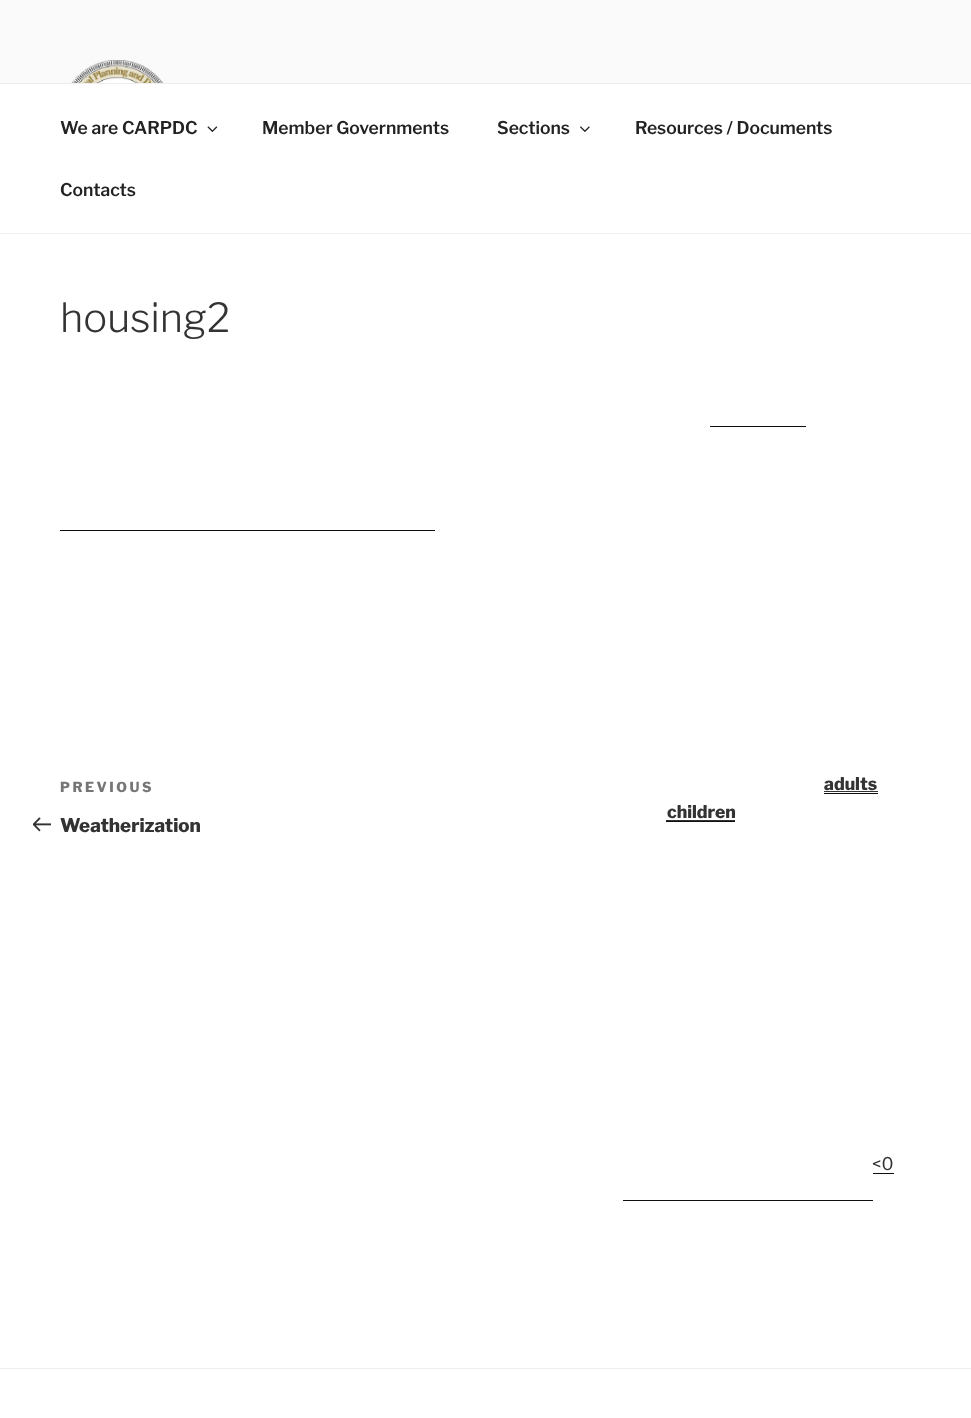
<svg xmlns="http://www.w3.org/2000/svg" width="971" height="1418" viewBox="0 0 971 1418">
  <rect width="100%" height="100%" fill="rgb(255,255,255)"/>
  <rect x="0" y="0" width="971" height="83" fill="rgb(250,250,250)"/>
  <image x="71" y="60" width="93" height="23" href="pic1.png"/>
  <rect x="0" y="83" width="971" height="1" fill="rgb(238,238,238)"/>
  <rect x="0" y="233" width="971" height="1" fill="rgb(238,238,238)"/>
  <text x="60" y="134" font-family="'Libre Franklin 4'" font-size="17.5" font-weight="100" fill="rgb(34,34,34)">We are CARPDC</text>
  <image x="207" y="126" width="11" height="6" href="pic2.png"/>
  <g font-family="'Libre Franklin 4'" font-size="17.5" font-weight="100" fill="rgb(34,34,34)">
    <text x="262" y="134">Member Governments</text>
    <text x="497" y="134">Sections</text>
  </g>
  <image x="580" y="126" width="10" height="6" href="pic3.png"/>
  <g font-family="'Libre Franklin 4'" font-size="17.5" font-weight="100" fill="rgb(34,34,34)">
    <text x="635" y="134">Resources / Documents</text>
    <text x="60" y="196">Contacts</text>
  </g>
  <text x="60" y="332" font-family="'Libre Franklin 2'" font-size="40" font-weight="100" fill="rgb(51,51,51)">housing2</text>
  <rect x="60" y="530" width="375" height="1" fill="rgb(15,15,15)"/>
  <text x="60" y="792" font-family="Libre Franklin" font-size="13.75" font-weight="100" letter-spacing="2.5" fill="rgb(118,118,118)">PREVIOUS</text>
  <image x="33" y="817" width="18" height="15" href="pic4.png"/>
  <text x="60" y="832" font-family="Libre Franklin" font-size="18.75" font-weight="100" fill="rgb(51,51,51)">Weatherization</text>
  <rect x="710" y="426" width="96" height="1" fill="rgb(15,15,15)"/>
  <text x="824" y="790" font-family="Libre Franklin" font-size="17.5" font-weight="100" fill="rgb(51,51,51)">adults</text>
  <rect x="824" y="793" width="54" height="1" fill="rgb(15,15,15)"/>
  <rect x="824" y="791" width="54" height="1" fill="rgb(51,51,51)"/>
  <text x="667" y="818" font-family="Libre Franklin" font-size="17.5" font-weight="100" fill="rgb(51,51,51)">children</text>
  <rect x="666" y="821" width="69" height="1" fill="rgb(15,15,15)"/>
  <rect x="666" y="820" width="69" height="1" fill="rgb(51,51,51)"/>
  <text x="872" y="1170" font-family="'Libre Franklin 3'" font-size="17.5" font-weight="100" fill="rgb(51,51,51)">&lt;0</text>
  <rect x="623" y="1200" width="250" height="1" fill="rgb(15,15,15)"/>
  <rect x="873" y="1173" width="21" height="1" fill="rgb(15,15,15)"/>
  <rect x="0" y="1368" width="971" height="1" fill="rgb(238,238,238)"/>
</svg>
